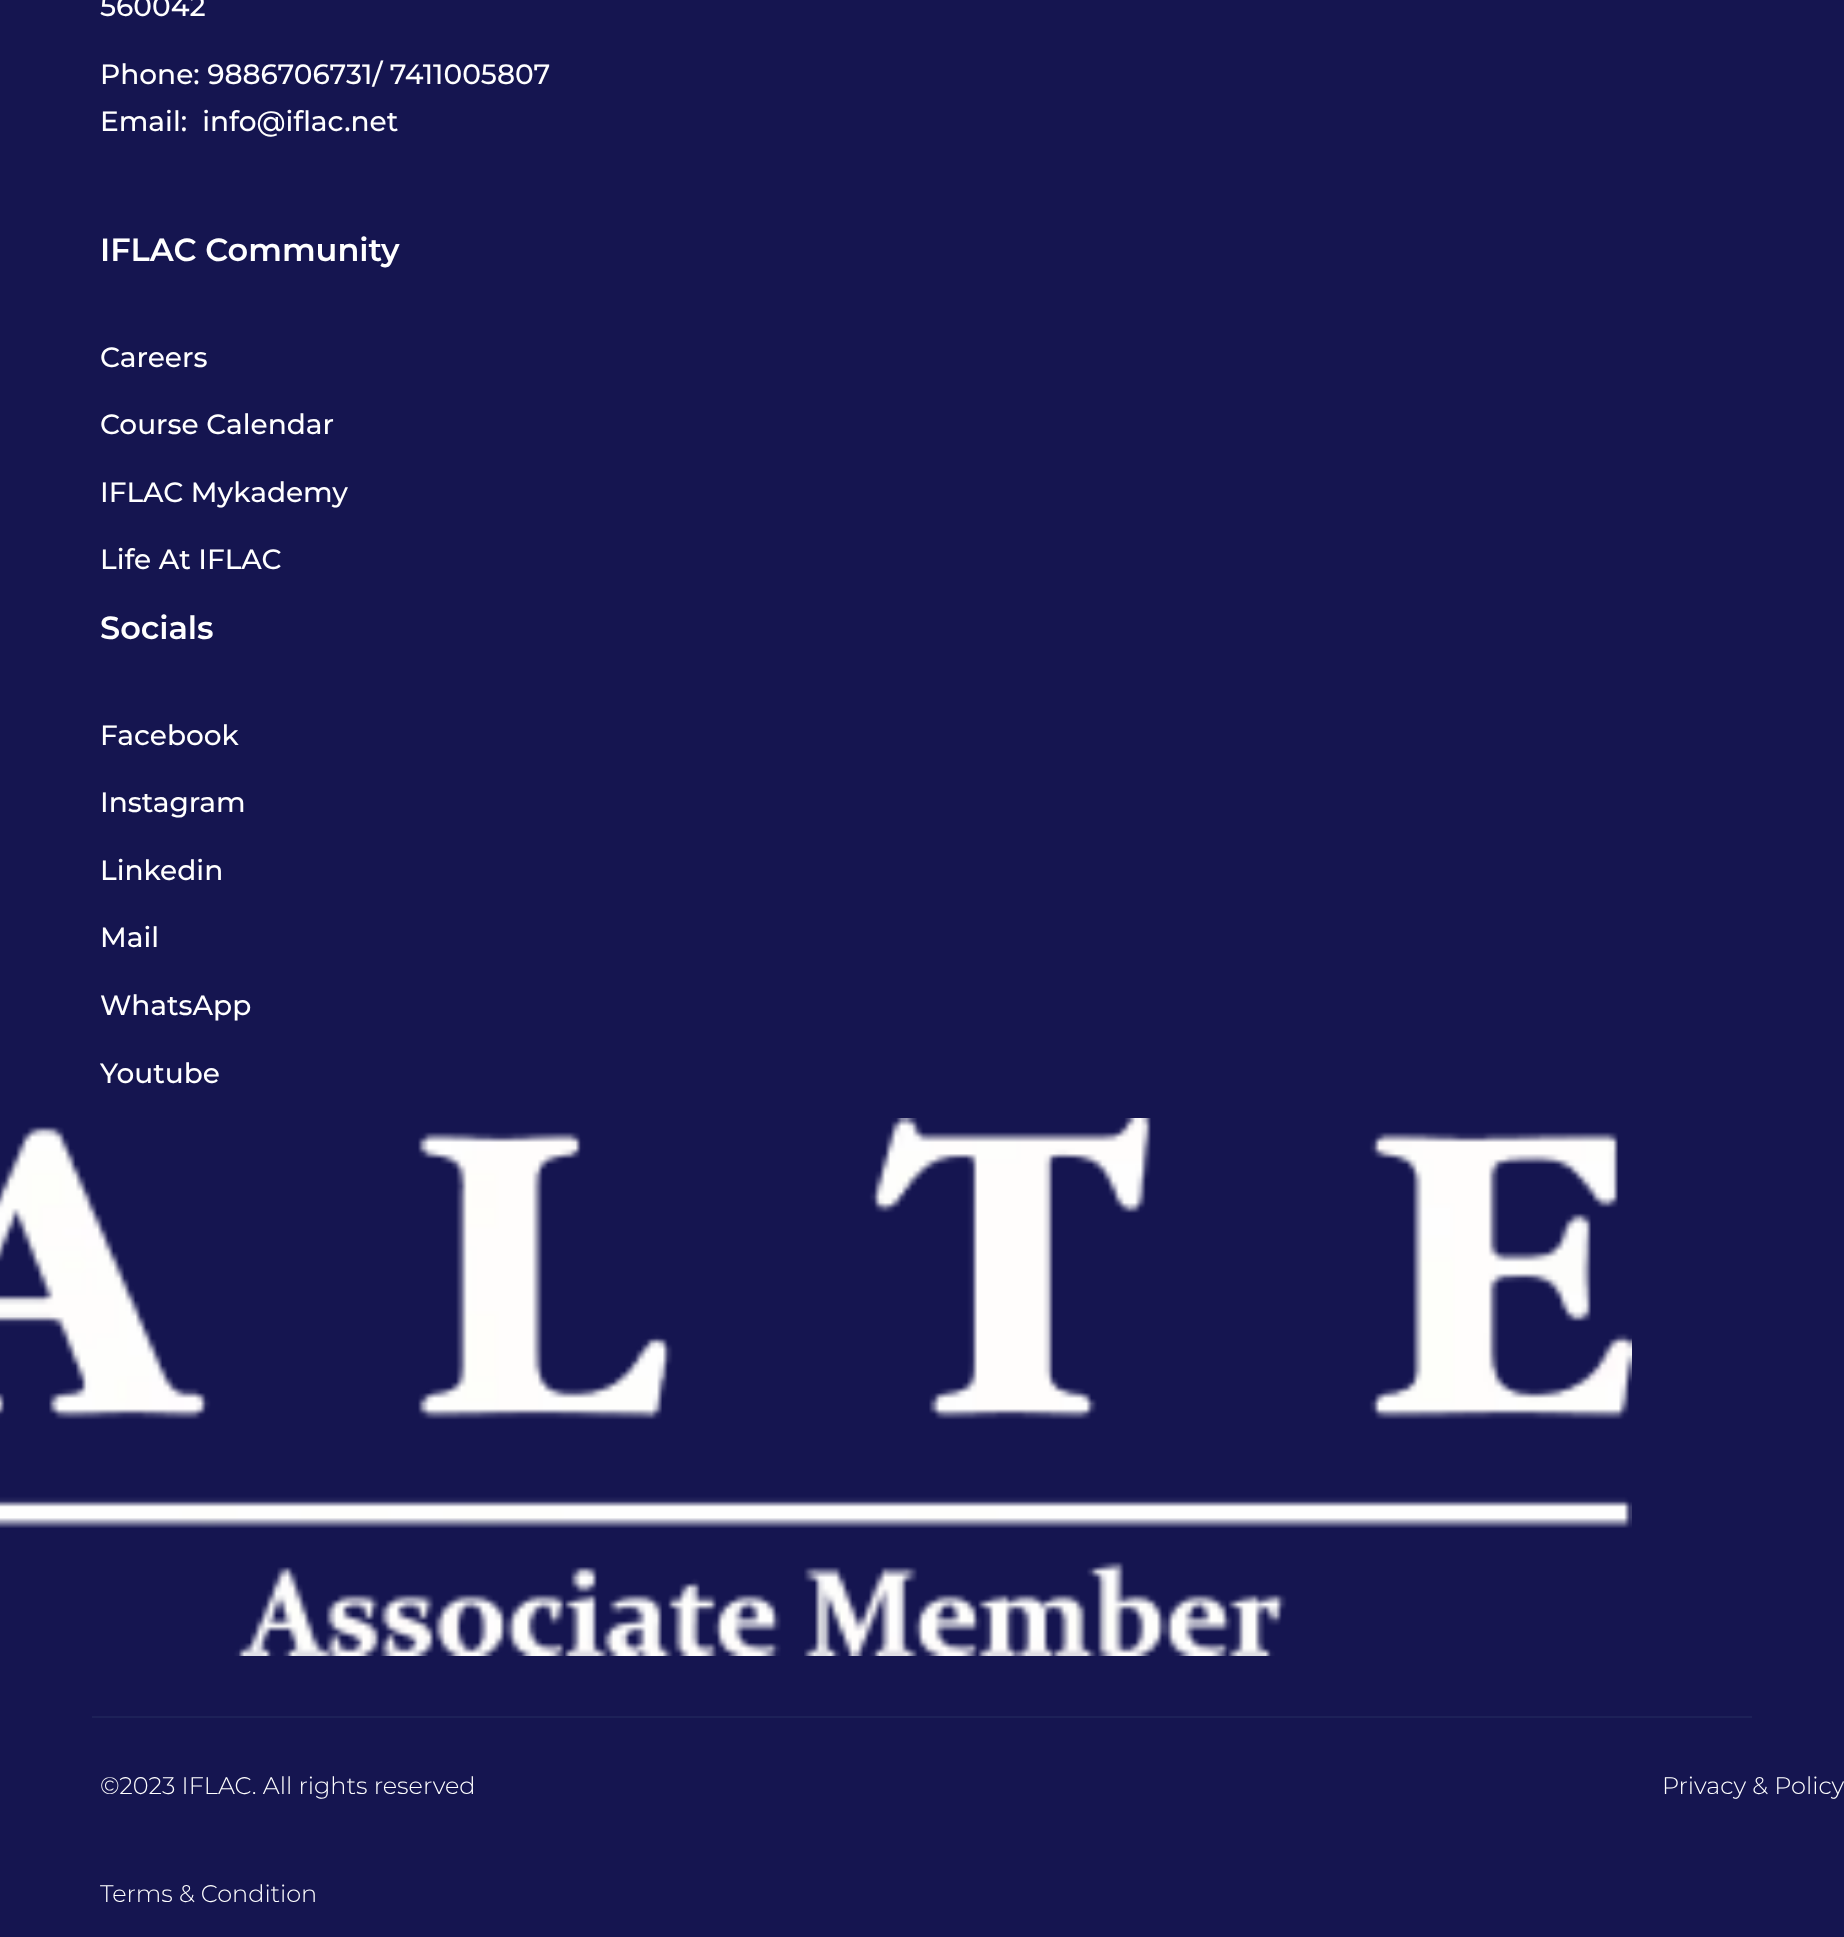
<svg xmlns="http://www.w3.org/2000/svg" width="1844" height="1937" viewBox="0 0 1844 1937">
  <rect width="100%" height="100%" fill="rgb(21,21,80)"/>
  <g font-family="Montserrat" font-size="28" font-weight="500" fill="rgb(255,255,255)">
    <text x="100" y="16">560042</text>
    <text xml:space="preserve"><tspan x="100" y="84">Phone: 9886706731/ 7411005807</tspan><tspan x="100" y="131">Email:  info@iflac.net</tspan></text>
  </g>
  <text x="100" y="261" font-family="Montserrat" font-size="32" font-weight="600" fill="rgb(255,255,255)">IFLAC Community</text>
  <g font-family="Montserrat" font-size="28" font-weight="500" fill="rgb(255,255,255)">
    <text x="100" y="367">Careers</text>
    <text x="100" y="434">Course Calendar</text>
    <text x="100" y="502">IFLAC Mykademy</text>
    <text x="100" y="569">Life At IFLAC</text>
  </g>
  <text x="100" y="639" font-family="Montserrat" font-size="32" font-weight="600" fill="rgb(255,255,255)">Socials</text>
  <g font-family="Montserrat" font-size="28" font-weight="500" fill="rgb(255,255,255)">
    <text x="100" y="745">Facebook</text>
    <text x="100" y="812">Instagram</text>
    <text x="100" y="880">Linkedin</text>
    <text x="100" y="947">Mail</text>
    <text x="100" y="1015">WhatsApp</text>
    <text x="100" y="1083">Youtube</text>
  </g>
  <image x="0" y="1118" width="1632" height="538" href="pic1.png"/>
  <rect x="92" y="1716" width="1660" height="2" fill="rgb(29,33,88)"/>
  <g font-family="Montserrat" font-size="24" font-weight="300" fill="rgb(255,255,255)">
    <text x="100" y="1794">©2023 IFLAC. All rights reserved</text>
    <text x="1662" y="1794">Privacy &amp; Policy</text>
    <text x="100" y="1902">Terms &amp; Condition</text>
  </g>
</svg>
